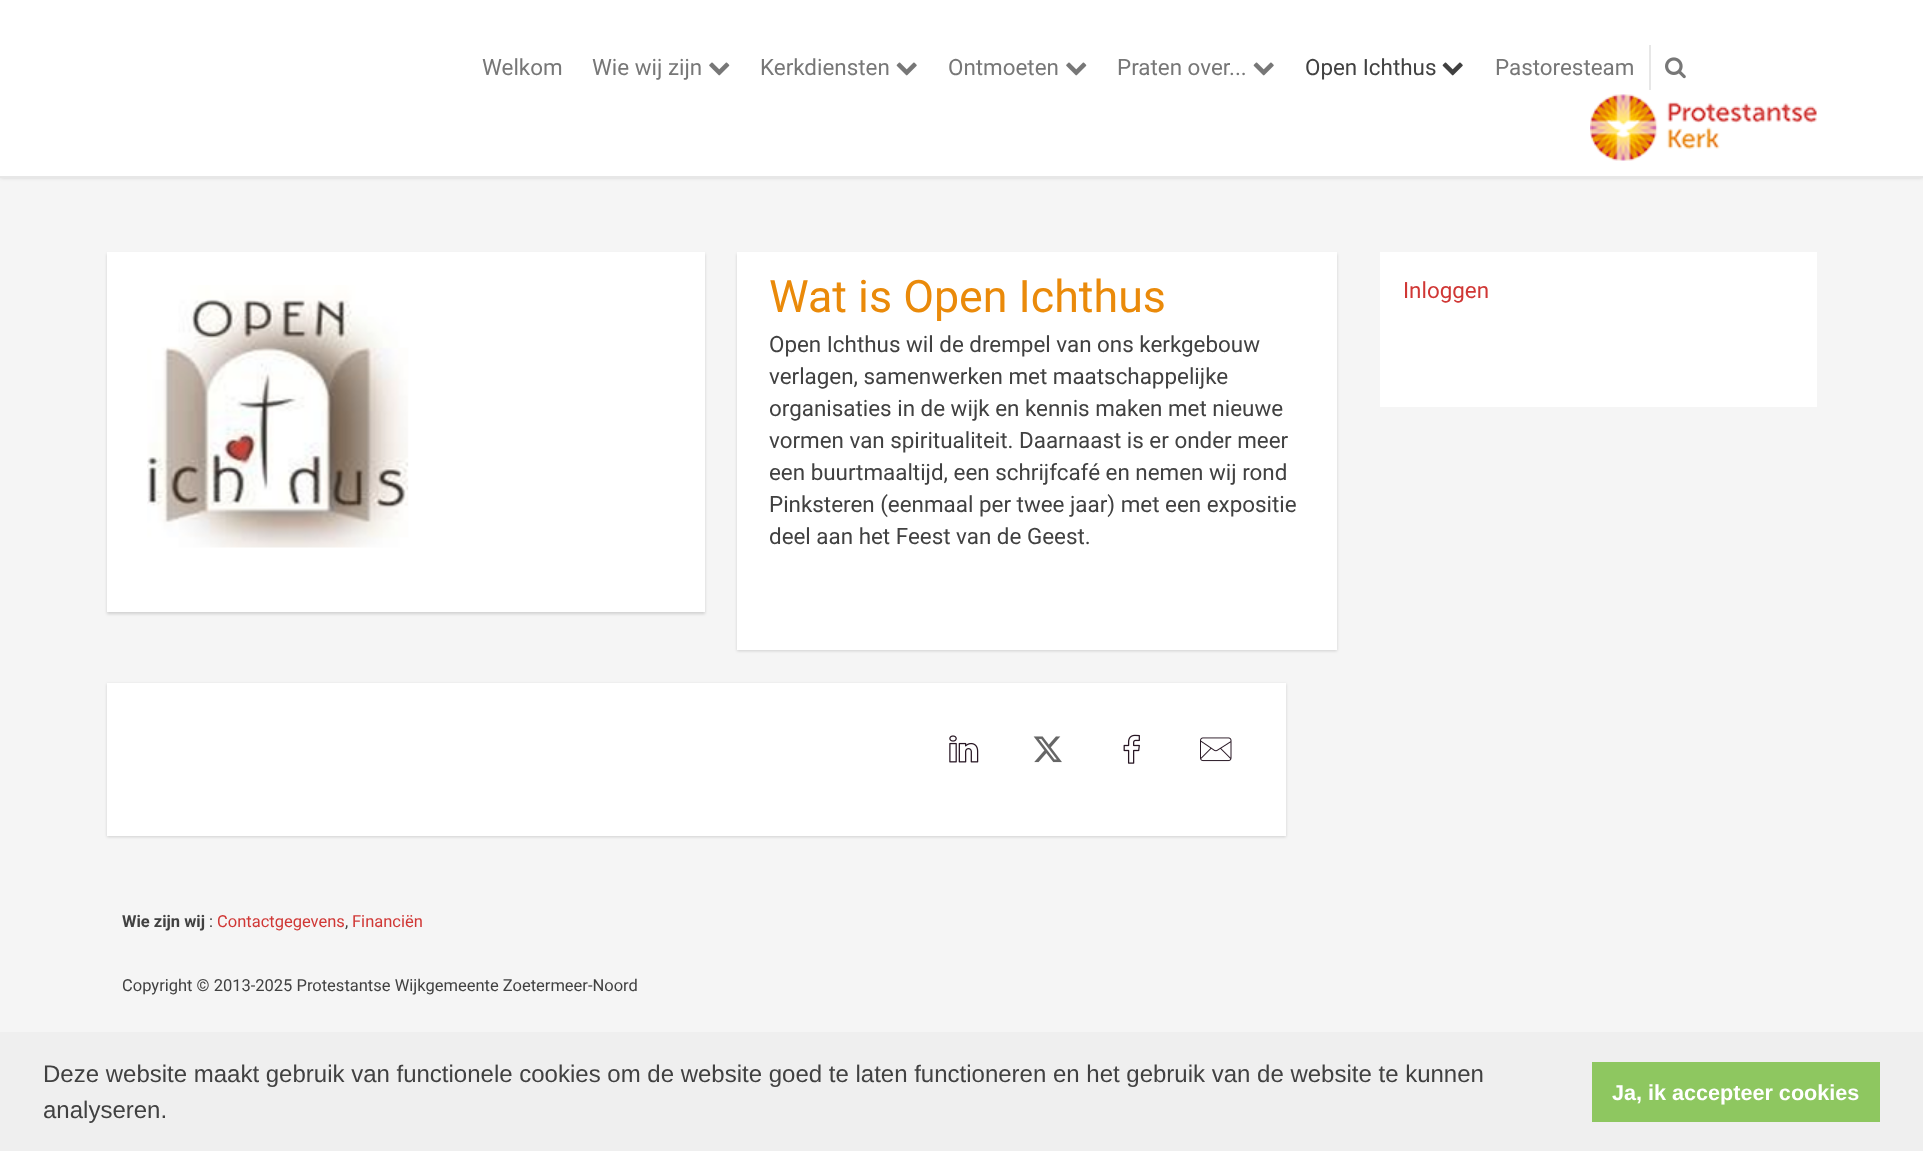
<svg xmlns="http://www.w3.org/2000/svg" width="1923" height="1151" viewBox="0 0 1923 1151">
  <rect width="100%" height="100%" fill="rgb(245,245,245)"/>
  <rect x="0" y="0" width="1923" height="177" fill="rgba(0,0,0,0.22)" filter="blur(2px)"/>
  <rect x="0" y="0" width="1923" height="176" fill="rgb(255,255,255)"/>
  <rect x="0" y="176" width="1923" height="2" fill="rgb(231,231,231)"/>
  <g font-family="Roboto" font-size="22.4" fill="rgb(119,119,119)">
    <text x="482" y="75">Welkom</text>
    <text x="592" y="75">Wie wij zijn</text>
  </g>
  <image x="709" y="62" width="21" height="14" href="pic1.png"/>
  <text x="760" y="75" font-family="Roboto" font-size="22.4" fill="rgb(119,119,119)">Kerkdiensten</text>
  <image x="896" y="62" width="21" height="14" href="pic2.png"/>
  <text x="948" y="75" font-family="Roboto" font-size="22.4" fill="rgb(119,119,119)">Ontmoeten</text>
  <image x="1066" y="62" width="21" height="14" href="pic1.png"/>
  <text x="1117" y="75" font-family="Roboto" font-size="22.4" fill="rgb(119,119,119)">Praten over...</text>
  <image x="1253" y="62" width="21" height="14" href="pic2.png"/>
  <text x="1305" y="75" font-family="Roboto" font-size="22.4" fill="rgb(65,65,65)">Open Ichthus</text>
  <image x="1442" y="62" width="21" height="14" href="pic3.png"/>
  <text x="1495" y="75" font-family="Roboto" font-size="22.4" fill="rgb(119,119,119)">Pastoresteam</text>
  <rect x="1649" y="45" width="2" height="45" fill="rgb(231,231,231)"/>
  <image x="1665" y="57" width="21" height="22" href="pic4.png"/>
  <image x="1590" y="94" width="227" height="67" href="pic5.png"/>
  <rect x="107" y="254" width="598" height="360" fill="rgba(0,0,0,0.15)" filter="blur(1.5px)"/>
  <rect x="107" y="252" width="598" height="360" fill="rgb(255,255,255)"/>
  <image x="147" y="285" width="262" height="263" href="pic6.png"/>
  <rect x="737" y="254" width="600" height="397" fill="rgba(0,0,0,0.15)" filter="blur(1.5px)"/>
  <rect x="737" y="252" width="600" height="398" fill="rgb(255,255,255)"/>
  <text x="769" y="312" font-family="Roboto" font-size="44.75" fill="rgb(234,138,10)">Wat is Open Ichthus</text>
  <g font-family="Roboto" font-size="22.4" fill="rgb(65,65,65)">
    <text>
      <tspan x="769" y="352">Open Ichthus wil de drempel van ons kerkgebouw</tspan>
      <tspan x="769" y="384">verlagen, samenwerken met maatschappelijke</tspan>
      <tspan x="769" y="416">organisaties in de wijk en kennis maken met nieuwe</tspan>
      <tspan x="769" y="448">vormen van spiritualiteit. Daarnaast is er onder meer</tspan>
      <tspan x="769" y="480">een buurtmaaltijd, een schrijfcafé en nemen wij rond</tspan>
      <tspan x="769" y="512">Pinksteren (eenmaal per twee jaar) met een expositie</tspan>
      <tspan x="769" y="544">deel aan het Feest van de Geest.</tspan>
    </text>
  </g>
  <rect x="107" y="684" width="1179" height="153" fill="rgba(0,0,0,0.15)" filter="blur(1.5px)"/>
  <rect x="107" y="683" width="1179" height="153" fill="rgb(255,255,255)"/>
  <image x="949" y="735" width="30" height="28" href="pic7.png"/>
  <image x="1033" y="736" width="29" height="27" href="pic8.png"/>
  <image x="1123" y="734" width="17" height="30" href="pic9.png"/>
  <image x="1200" y="737" width="32" height="25" href="pic10.png"/>
  <rect x="1380" y="252" width="437" height="155" fill="rgb(255,255,255)"/>
  <text x="1403" y="298" font-family="Roboto" font-size="22.4" fill="rgb(208,55,53)">Inloggen</text>
  <text x="122" y="927" font-family="Roboto" font-size="16.5" font-weight="bold" fill="rgb(65,65,65)">Wie zijn wij</text>
  <text x="209" y="927" font-family="Roboto" font-size="16.5" fill="rgb(65,65,65)">:</text>
  <text x="217" y="927" font-family="Roboto" font-size="16.5" fill="rgb(208,55,53)">Contactgegevens</text>
  <text x="345" y="927" font-family="Roboto" font-size="16.5" fill="rgb(65,65,65)">,</text>
  <text x="352" y="927" font-family="Roboto" font-size="16.5" fill="rgb(208,55,53)">Financiën</text>
  <text x="122" y="991" font-family="Roboto" font-size="16.5" fill="rgb(65,65,65)">Copyright © 2013-2025 Protestantse Wijkgemeente Zoetermeer-Noord</text>
  <rect x="0" y="1032" width="1923" height="119" fill="rgb(239,239,239)"/>
  <g font-family="Liberation Sans" font-size="24" fill="rgb(65,65,65)">
    <text>
      <tspan x="43" y="1082">Deze website maakt gebruik van functionele cookies om de website goed te laten functioneren en het gebruik van de website te kunnen</tspan>
      <tspan x="43" y="1118">analyseren.</tspan>
    </text>
  </g>
  <rect x="1592" y="1062" width="288" height="60" fill="rgb(142,199,96)"/>
  <text x="1612" y="1100" font-family="Liberation Sans" font-size="21.6" font-weight="bold" fill="rgb(255,255,255)">Ja, ik accepteer cookies</text>
</svg>
